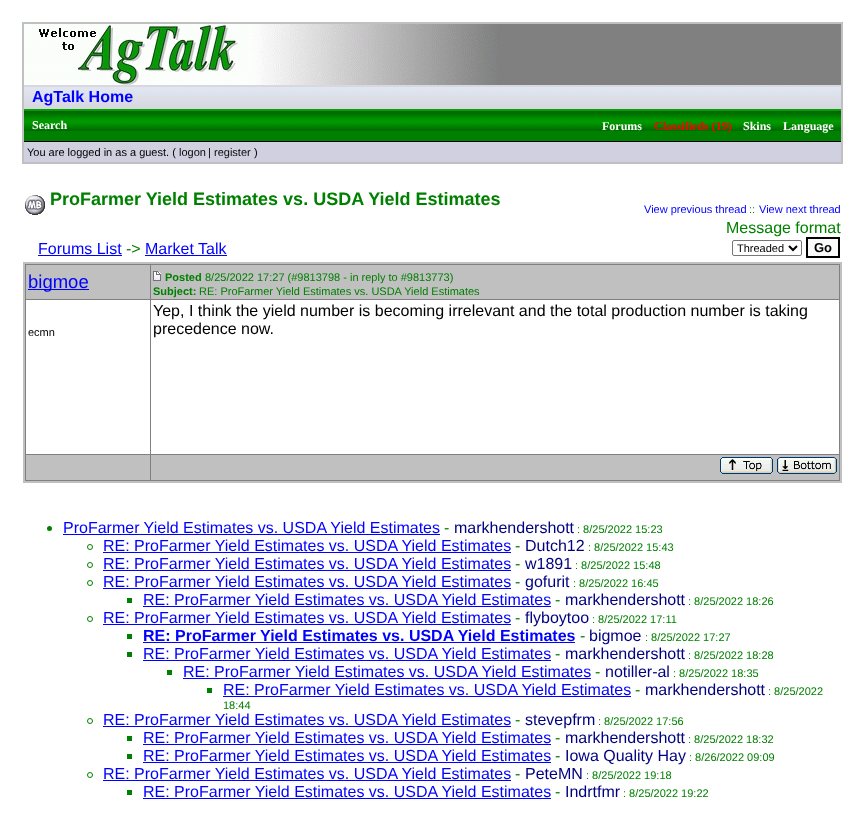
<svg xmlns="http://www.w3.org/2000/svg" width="865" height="820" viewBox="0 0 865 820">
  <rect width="100%" height="100%" fill="rgb(255,255,255)"/>
  <rect x="498" y="24" width="343" height="61" fill="rgb(128,128,128)"/>
  <rect x="23" y="23" width="819" height="140" fill="none" stroke="rgb(192,192,192)" stroke-width="2"/>
  <image x="24" y="24" width="474" height="61" href="pic1.png"/>
  <image x="24" y="85" width="817" height="24" href="pic2.png"/>
  <text x="32" y="102" font-family="Liberation Sans" font-size="16" font-weight="bold" fill="rgb(0,0,255)">AgTalk Home</text>
  <rect x="24" y="131" width="817" height="10" fill="rgb(0,128,0)"/>
  <image x="24" y="109" width="817" height="22" href="pic3.png"/>
  <g font-family="Liberation Serif" font-size="12" font-weight="bold" fill="rgb(255,255,255)">
    <text x="32" y="129">Search</text>
    <text x="602" y="130">Forums</text>
  </g>
  <text x="654" y="130" font-family="Liberation Serif" font-size="12" font-weight="bold" fill="rgb(255,0,0)">Classifieds (19)</text>
  <g font-family="Liberation Serif" font-size="12" font-weight="bold" fill="rgb(255,255,255)">
    <text x="743" y="130">Skins</text>
    <text x="783" y="130">Language</text>
  </g>
  <rect x="24" y="142" width="817" height="20" fill="rgb(208,208,224)"/>
  <rect x="24" y="141" width="817" height="1" fill="rgb(0,0,0)"/>
  <text x="27" y="156" font-family="Liberation Sans" font-size="11" fill="rgb(0,0,0)">You are logged in as a guest. (</text>
  <text x="179" y="156" font-family="Liberation Sans" font-size="11" fill="rgb(7,7,7)">logon</text>
  <text x="208" y="156" font-family="Liberation Sans" font-size="11" fill="rgb(0,0,0)">|</text>
  <text x="214" y="156" font-family="Liberation Sans" font-size="11" fill="rgb(7,7,7)">register</text>
  <text x="254" y="156" font-family="Liberation Sans" font-size="11" fill="rgb(0,0,0)">)</text>
  <image x="25" y="195" width="20" height="20" href="pic4.png"/>
  <text x="50" y="205" font-family="Liberation Sans" font-size="18" font-weight="bold" fill="rgb(0,128,0)">ProFarmer Yield Estimates vs. USDA Yield Estimates</text>
  <text x="644" y="213" font-family="Liberation Sans" font-size="11" fill="rgb(0,0,255)">View previous thread</text>
  <text x="749" y="213" font-family="Liberation Sans" font-size="11" fill="rgb(0,128,0)">::</text>
  <text x="759" y="213" font-family="Liberation Sans" font-size="11" fill="rgb(0,0,255)">View next thread</text>
  <text x="38" y="254" font-family="Liberation Sans" font-size="16" fill="rgb(0,0,255)">Forums List</text>
  <rect x="38" y="255" width="84" height="1" fill="rgb(0,0,255)"/>
  <text x="126" y="254" font-family="Liberation Sans" font-size="16" fill="rgb(0,128,0)">-&gt;</text>
  <text x="145" y="254" font-family="Liberation Sans" font-size="16" fill="rgb(0,0,255)">Market Talk</text>
  <rect x="145" y="255" width="82" height="1" fill="rgb(0,0,255)"/>
  <text x="726" y="233" font-family="Liberation Sans" font-size="16" fill="rgb(0,128,0)">Message format</text>
  <rect x="732.5" y="240.5" width="69" height="15" rx="1.5" fill="none" stroke="rgb(118,118,118)"/>
  <path d="M789 246L793 250L797 246" fill="none" stroke="rgb(0,0,0)" stroke-width="2"/>
  <text x="737" y="252" font-family="Liberation Sans" font-size="11" fill="rgb(0,0,0)">Threaded</text>
  <rect x="807" y="238" width="32" height="19" fill="rgb(250,250,250)" stroke="rgb(0,0,0)" stroke-width="2"/>
  <text x="814" y="252" font-family="Liberation Sans" font-size="13" font-weight="bold" fill="rgb(0,0,0)">Go</text>
  <rect x="24" y="263" width="817" height="219" fill="rgb(128,128,128)" stroke="rgb(192,192,192)" stroke-width="2"/>
  <rect x="26" y="265" width="124" height="34" fill="rgb(192,192,192)"/>
  <rect x="28" y="289" width="61" height="1" fill="rgb(0,0,255)"/>
  <text x="28" y="288" font-family="Liberation Sans" font-size="18.5" fill="rgb(0,0,255)">bigmoe</text>
  <rect x="151" y="265" width="688" height="34" fill="rgb(192,192,192)"/>
  <image x="153" y="271" width="8" height="10" href="pic5.png"/>
  <text x="165" y="281" font-family="Liberation Sans" font-size="11" font-weight="bold" fill="rgb(0,128,0)">Posted</text>
  <text x="205" y="281" font-family="Liberation Sans" font-size="11" fill="rgb(0,128,0)">8/25/2022 17:27 (#9813798 - in reply to #9813773)</text>
  <text x="153" y="295" font-family="Liberation Sans" font-size="11" font-weight="bold" fill="rgb(0,128,0)">Subject:</text>
  <text x="199" y="295" font-family="Liberation Sans" font-size="11" fill="rgb(0,128,0)">RE: ProFarmer Yield Estimates vs. USDA Yield Estimates</text>
  <rect x="26" y="300" width="124" height="154" fill="rgb(255,255,255)"/>
  <text x="28" y="336" font-family="Liberation Sans" font-size="11" fill="rgb(0,0,0)">ecmn</text>
  <rect x="151" y="300" width="688" height="154" fill="rgb(255,255,255)"/>
  <g font-family="Liberation Sans" font-size="16" fill="rgb(0,0,0)">
    <text>
      <tspan x="153" y="316">Yep, I think the yield number is becoming irrelevant and the total production number is taking</tspan>
      <tspan x="153" y="334">precedence now.</tspan>
    </text>
  </g>
  <rect x="26" y="455" width="124" height="25" fill="rgb(192,192,192)"/>
  <rect x="151" y="455" width="688" height="25" fill="rgb(192,192,192)"/>
  <image x="720" y="457" width="53" height="17" href="pic6.png"/>
  <image x="777" y="457" width="60" height="17" href="pic7.png"/>
  <circle cx="49.5" cy="528.5" r="2.5" fill="rgb(0,128,0)"/>
  <text x="63" y="533" font-family="Liberation Sans" font-size="16" fill="rgb(0,0,255)">ProFarmer Yield Estimates vs. USDA Yield Estimates</text>
  <rect x="63" y="534" width="377" height="1" fill="rgb(0,0,255)"/>
  <text x="444" y="533" font-family="Liberation Sans" font-size="16" fill="rgb(0,128,0)">-</text>
  <text x="454" y="533" font-family="Liberation Sans" font-size="16" fill="rgb(0,0,128)">markhendershott</text>
  <text x="577" y="533" font-family="Liberation Sans" font-size="11" fill="rgb(0,128,0)">: 8/25/2022 15:23</text>
  <circle cx="90" cy="547" r="2.5" fill="none" stroke="rgb(0,128,0)"/>
  <text x="103" y="551" font-family="Liberation Sans" font-size="16" fill="rgb(0,0,255)">RE: ProFarmer Yield Estimates vs. USDA Yield Estimates</text>
  <rect x="103" y="552" width="408" height="1" fill="rgb(0,0,255)"/>
  <text x="515" y="551" font-family="Liberation Sans" font-size="16" fill="rgb(0,128,0)">-</text>
  <text x="525" y="551" font-family="Liberation Sans" font-size="16" fill="rgb(0,0,128)">Dutch12</text>
  <text x="588" y="551" font-family="Liberation Sans" font-size="11" fill="rgb(0,128,0)">: 8/25/2022 15:43</text>
  <circle cx="90" cy="565" r="2.5" fill="none" stroke="rgb(0,128,0)"/>
  <text x="103" y="569" font-family="Liberation Sans" font-size="16" fill="rgb(0,0,255)">RE: ProFarmer Yield Estimates vs. USDA Yield Estimates</text>
  <rect x="103" y="570" width="408" height="1" fill="rgb(0,0,255)"/>
  <text x="515" y="569" font-family="Liberation Sans" font-size="16" fill="rgb(0,128,0)">-</text>
  <text x="525" y="569" font-family="Liberation Sans" font-size="16" fill="rgb(0,0,128)">w1891</text>
  <text x="575" y="569" font-family="Liberation Sans" font-size="11" fill="rgb(0,128,0)">: 8/25/2022 15:48</text>
  <circle cx="90" cy="583" r="2.5" fill="none" stroke="rgb(0,128,0)"/>
  <text x="103" y="587" font-family="Liberation Sans" font-size="16" fill="rgb(0,0,255)">RE: ProFarmer Yield Estimates vs. USDA Yield Estimates</text>
  <rect x="103" y="588" width="408" height="1" fill="rgb(0,0,255)"/>
  <text x="515" y="587" font-family="Liberation Sans" font-size="16" fill="rgb(0,128,0)">-</text>
  <text x="525" y="587" font-family="Liberation Sans" font-size="16" fill="rgb(0,0,128)">gofurit</text>
  <text x="573" y="587" font-family="Liberation Sans" font-size="11" fill="rgb(0,128,0)">: 8/25/2022 16:45</text>
  <rect x="127" y="598" width="5" height="5" fill="rgb(0,128,0)"/>
  <text x="143" y="605" font-family="Liberation Sans" font-size="16" fill="rgb(0,0,255)">RE: ProFarmer Yield Estimates vs. USDA Yield Estimates</text>
  <rect x="143" y="606" width="408" height="1" fill="rgb(0,0,255)"/>
  <text x="555" y="605" font-family="Liberation Sans" font-size="16" fill="rgb(0,128,0)">-</text>
  <text x="565" y="605" font-family="Liberation Sans" font-size="16" fill="rgb(0,0,128)">markhendershott</text>
  <text x="688" y="605" font-family="Liberation Sans" font-size="11" fill="rgb(0,128,0)">: 8/25/2022 18:26</text>
  <circle cx="90" cy="619" r="2.5" fill="none" stroke="rgb(0,128,0)"/>
  <text x="103" y="623" font-family="Liberation Sans" font-size="16" fill="rgb(0,0,255)">RE: ProFarmer Yield Estimates vs. USDA Yield Estimates</text>
  <rect x="103" y="624" width="408" height="1" fill="rgb(0,0,255)"/>
  <text x="515" y="623" font-family="Liberation Sans" font-size="16" fill="rgb(0,128,0)">-</text>
  <text x="525" y="623" font-family="Liberation Sans" font-size="16" fill="rgb(0,0,128)">flyboytoo</text>
  <text x="592" y="623" font-family="Liberation Sans" font-size="11" fill="rgb(0,128,0)">: 8/25/2022 17:11</text>
  <rect x="127" y="634" width="5" height="5" fill="rgb(0,128,0)"/>
  <text x="143" y="641" font-family="Liberation Sans" font-size="16" font-weight="bold" fill="rgb(0,0,255)">RE: ProFarmer Yield Estimates vs. USDA Yield Estimates</text>
  <rect x="143" y="642" width="432" height="1" fill="rgb(0,0,255)"/>
  <text x="580" y="641" font-family="Liberation Sans" font-size="16" fill="rgb(0,128,0)">-</text>
  <text x="589" y="641" font-family="Liberation Sans" font-size="16" fill="rgb(0,0,128)">bigmoe</text>
  <text x="645" y="641" font-family="Liberation Sans" font-size="11" fill="rgb(0,128,0)">: 8/25/2022 17:27</text>
  <rect x="127" y="652" width="5" height="5" fill="rgb(0,128,0)"/>
  <text x="143" y="659" font-family="Liberation Sans" font-size="16" fill="rgb(0,0,255)">RE: ProFarmer Yield Estimates vs. USDA Yield Estimates</text>
  <rect x="143" y="660" width="408" height="1" fill="rgb(0,0,255)"/>
  <text x="555" y="659" font-family="Liberation Sans" font-size="16" fill="rgb(0,128,0)">-</text>
  <text x="565" y="659" font-family="Liberation Sans" font-size="16" fill="rgb(0,0,128)">markhendershott</text>
  <text x="688" y="659" font-family="Liberation Sans" font-size="11" fill="rgb(0,128,0)">: 8/25/2022 18:28</text>
  <rect x="167" y="670" width="5" height="5" fill="rgb(0,128,0)"/>
  <text x="183" y="677" font-family="Liberation Sans" font-size="16" fill="rgb(0,0,255)">RE: ProFarmer Yield Estimates vs. USDA Yield Estimates</text>
  <rect x="183" y="678" width="408" height="1" fill="rgb(0,0,255)"/>
  <text x="595" y="677" font-family="Liberation Sans" font-size="16" fill="rgb(0,128,0)">-</text>
  <text x="605" y="677" font-family="Liberation Sans" font-size="16" fill="rgb(0,0,128)">notiller-al</text>
  <text x="673" y="677" font-family="Liberation Sans" font-size="11" fill="rgb(0,128,0)">: 8/25/2022 18:35</text>
  <rect x="207" y="688" width="5" height="5" fill="rgb(0,128,0)"/>
  <text x="223" y="695" font-family="Liberation Sans" font-size="16" fill="rgb(0,0,255)">RE: ProFarmer Yield Estimates vs. USDA Yield Estimates</text>
  <rect x="223" y="696" width="408" height="1" fill="rgb(0,0,255)"/>
  <text x="635" y="695" font-family="Liberation Sans" font-size="16" fill="rgb(0,128,0)">-</text>
  <text x="645" y="695" font-family="Liberation Sans" font-size="16" fill="rgb(0,0,128)">markhendershott</text>
  <g font-family="Liberation Sans" font-size="11" fill="rgb(0,128,0)">
    <text x="768" y="695">: 8/25/2022</text>
    <text x="223" y="709">18:44</text>
  </g>
  <circle cx="90" cy="721" r="2.5" fill="none" stroke="rgb(0,128,0)"/>
  <text x="103" y="725" font-family="Liberation Sans" font-size="16" fill="rgb(0,0,255)">RE: ProFarmer Yield Estimates vs. USDA Yield Estimates</text>
  <rect x="103" y="726" width="408" height="1" fill="rgb(0,0,255)"/>
  <text x="515" y="725" font-family="Liberation Sans" font-size="16" fill="rgb(0,128,0)">-</text>
  <text x="525" y="725" font-family="Liberation Sans" font-size="16" fill="rgb(0,0,128)">stevepfrm</text>
  <text x="598" y="725" font-family="Liberation Sans" font-size="11" fill="rgb(0,128,0)">: 8/25/2022 17:56</text>
  <rect x="127" y="736" width="5" height="5" fill="rgb(0,128,0)"/>
  <text x="143" y="743" font-family="Liberation Sans" font-size="16" fill="rgb(0,0,255)">RE: ProFarmer Yield Estimates vs. USDA Yield Estimates</text>
  <rect x="143" y="744" width="408" height="1" fill="rgb(0,0,255)"/>
  <text x="555" y="743" font-family="Liberation Sans" font-size="16" fill="rgb(0,128,0)">-</text>
  <text x="565" y="743" font-family="Liberation Sans" font-size="16" fill="rgb(0,0,128)">markhendershott</text>
  <text x="688" y="743" font-family="Liberation Sans" font-size="11" fill="rgb(0,128,0)">: 8/25/2022 18:32</text>
  <rect x="127" y="754" width="5" height="5" fill="rgb(0,128,0)"/>
  <text x="143" y="761" font-family="Liberation Sans" font-size="16" fill="rgb(0,0,255)">RE: ProFarmer Yield Estimates vs. USDA Yield Estimates</text>
  <rect x="143" y="762" width="408" height="1" fill="rgb(0,0,255)"/>
  <text x="555" y="761" font-family="Liberation Sans" font-size="16" fill="rgb(0,128,0)">-</text>
  <text x="565" y="761" font-family="Liberation Sans" font-size="16" fill="rgb(0,0,128)">Iowa Quality Hay</text>
  <text x="689" y="761" font-family="Liberation Sans" font-size="11" fill="rgb(0,128,0)">: 8/26/2022 09:09</text>
  <circle cx="90" cy="775" r="2.5" fill="none" stroke="rgb(0,128,0)"/>
  <text x="103" y="779" font-family="Liberation Sans" font-size="16" fill="rgb(0,0,255)">RE: ProFarmer Yield Estimates vs. USDA Yield Estimates</text>
  <rect x="103" y="780" width="408" height="1" fill="rgb(0,0,255)"/>
  <text x="515" y="779" font-family="Liberation Sans" font-size="16" fill="rgb(0,128,0)">-</text>
  <text x="525" y="779" font-family="Liberation Sans" font-size="16" fill="rgb(0,0,128)">PeteMN</text>
  <text x="586" y="779" font-family="Liberation Sans" font-size="11" fill="rgb(0,128,0)">: 8/25/2022 19:18</text>
  <rect x="127" y="790" width="5" height="5" fill="rgb(0,128,0)"/>
  <text x="143" y="797" font-family="Liberation Sans" font-size="16" fill="rgb(0,0,255)">RE: ProFarmer Yield Estimates vs. USDA Yield Estimates</text>
  <rect x="143" y="798" width="408" height="1" fill="rgb(0,0,255)"/>
  <text x="555" y="797" font-family="Liberation Sans" font-size="16" fill="rgb(0,128,0)">-</text>
  <text x="565" y="797" font-family="Liberation Sans" font-size="16" fill="rgb(0,0,128)">Indrtfmr</text>
  <text x="623" y="797" font-family="Liberation Sans" font-size="11" fill="rgb(0,128,0)">: 8/25/2022 19:22</text>
</svg>
